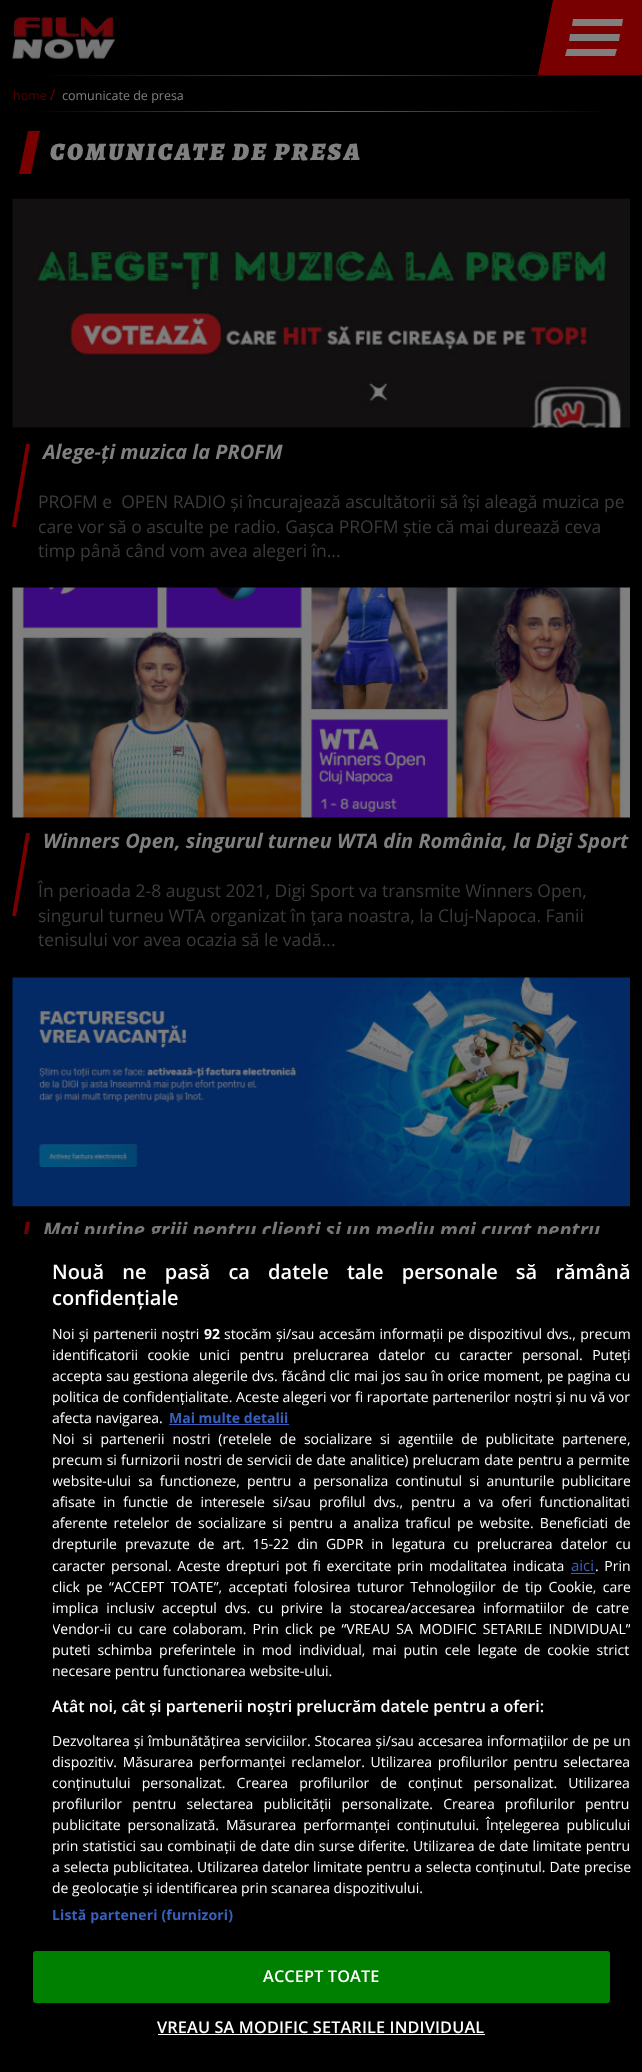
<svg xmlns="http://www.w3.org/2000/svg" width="642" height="2072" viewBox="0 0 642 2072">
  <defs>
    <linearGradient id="g1" gradientUnits="userSpaceOnUse" x1="0" y1="112" x2="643" y2="112"><stop offset="0.05" stop-color="rgb(0,0,0)"/><stop offset="0.5" stop-color="rgb(97,97,97)"/><stop offset="0.95" stop-color="rgb(0,0,0)"/></linearGradient>
    <linearGradient id="g2" gradientUnits="userSpaceOnUse" x1="0" y1="76" x2="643" y2="76"><stop offset="0.05" stop-color="rgb(0,0,0)"/><stop offset="0.5" stop-color="rgb(97,97,97)"/><stop offset="0.95" stop-color="rgb(0,0,0)"/></linearGradient>
    <clipPath id="clip1"><rect x="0" y="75" width="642" height="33"/></clipPath>
    <clipPath id="clip2"><rect x="53" y="1259" width="577" height="680"/></clipPath>
  </defs>
  <rect width="100%" height="100%" fill="rgb(0,0,0)"/>
  <rect x="40" y="111" width="563" height="1" fill="url(#g1)"/>
  <rect x="40" y="75" width="563" height="1" fill="url(#g2)"/>
  <g clip-path="url(#clip1)">
    <rect x="0" y="6" width="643" height="75" fill="rgba(0,0,0,0.5)" filter="blur(15.5px)"/>
  </g>
  <image x="12" y="17" width="103" height="42" href="pic1.png"/>
  <path d="M553 0H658L642 75H538Z" fill="rgb(120,0,0)"/>
  <path d="M570 34H620L619 41H569ZM573 19H623L622 26H572ZM567 49H617L615 56H565Z" fill="rgb(128,128,128)"/>
  <text x="13" y="100" font-family="Open Sans" font-size="12.5" fill="rgb(90,0,0)">home</text>
  <text x="50" y="100" font-family="Open Sans" font-size="15" fill="rgb(120,0,0)">/</text>
  <text x="62" y="100" font-family="Open Sans" font-size="12.5" fill="rgb(128,128,128)">comunicate de presa</text>
  <path d="M28 131H40L31 174H19Z" fill="rgb(120,0,0)"/>
  <text x="50" y="160" font-family="Alegreya SC" font-size="25" font-weight="900" font-style="italic" letter-spacing="2.5" fill="rgb(128,128,128)">COMUNICATE DE PRESA</text>
  <image x="12" y="198" width="618" height="230" href="pic2.png"/>
  <path d="M26 444H30L16 527H12Z" fill="rgb(120,0,0)"/>
  <text x="43" y="459" font-family="Open Sans" font-size="20" font-weight="bold" font-style="italic" fill="rgb(128,128,128)">Alege-ți muzica la PROFM</text>
  <g font-family="Open Sans" font-size="17.5" fill="rgb(60,60,60)">
    <text xml:space="preserve"><tspan x="38" y="508">PROFM e  OPEN RADIO și încurajează ascultătorii să își aleagă muzica pe</tspan><tspan x="38" y="533">care vor să o asculte pe radio. Gașca PROFM știe că mai durează ceva</tspan><tspan x="38" y="557">timp până când vom avea alegeri în...</tspan></text>
  </g>
  <image x="12" y="587" width="618" height="231" href="pic3.png"/>
  <path d="M26 833H30L16 916H12Z" fill="rgb(120,0,0)"/>
  <text x="43" y="848" font-family="Open Sans" font-size="20" font-weight="bold" font-style="italic" fill="rgb(128,128,128)">Winners Open, singurul turneu WTA din România, la Digi Sport</text>
  <g font-family="Open Sans" font-size="17.5" fill="rgb(60,60,60)">
    <text>
      <tspan x="38" y="897">În perioada 2-8 august 2021, Digi Sport va transmite Winners Open,</tspan>
      <tspan x="38" y="922">singurul turneu WTA organizat în țara noastra, la Cluj-Napoca. Fanii</tspan>
      <tspan x="38" y="946">tenisului vor avea ocazia să le vadă...</tspan>
    </text>
  </g>
  <image x="12" y="977" width="618" height="230" href="pic4.png"/>
  <path d="M26 1222H30L16 1305H12Z" fill="rgb(120,0,0)"/>
  <text x="43" y="1237" font-family="Open Sans" font-size="20" font-weight="bold" font-style="italic" fill="rgb(128,128,128)">Mai puține griji pentru clienți și un mediu mai curat pentru</text>
  <rect x="0" y="1234" width="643" height="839" fill="rgba(0,0,0,0.2)" filter="blur(11px)"/>
  <rect x="12" y="1234" width="587" height="71" fill="rgb(0,0,0)"/>
  <g font-family="Open Sans" font-size="20" font-weight="600" fill="rgb(255,255,255)">
    <text>
      <tspan x="52" y="1279" word-spacing="13">Nouă ne pasă ca datele tale personale să rămână</tspan>
      <tspan x="52" y="1305">confidențiale</tspan>
    </text>
  </g>
  <text x="52" y="1339" word-spacing="0.5" font-family="Open Sans" font-size="14" fill="rgb(255,255,255)">Noi și partenerii noștri</text>
  <text x="204" y="1339" font-family="Open Sans" font-size="14" font-weight="bold" fill="rgb(255,255,255)">92</text>
  <g font-family="Open Sans" font-size="14" fill="rgb(255,255,255)">
    <text x="224" y="1339" word-spacing="0.75">stocăm și/sau accesăm informații pe dispozitivul dvs., precum</text>
    <text>
      <tspan x="52" y="1360" word-spacing="5.75">identificatorii cookie unici pentru prelucrarea datelor cu caracter personal. Puteți</tspan>
      <tspan x="52" y="1381" word-spacing="0.25">accepta sau gestiona alegerile dvs. făcând clic mai jos sau în orice moment, pe pagina cu</tspan>
      <tspan x="52" y="1402">politica de confidențialitate. Aceste alegeri vor fi raportate partenerilor noștri și nu vă vor</tspan>
      <tspan x="52" y="1423">afecta navigarea.</tspan>
    </text>
  </g>
  <text x="169" y="1423" font-family="Open Sans" font-size="14" font-weight="bold" fill="rgb(56,96,190)">Mai multe detalii</text>
  <rect x="169" y="1424" width="120" height="1" fill="rgb(56,96,190)"/>
  <g font-family="Open Sans" font-size="14" fill="rgb(255,255,255)">
    <text>
      <tspan x="52" y="1444" word-spacing="4.25">Noi si partenerii nostri (retelele de socializare si agentiile de publicitate partenere,</tspan>
      <tspan x="52" y="1465" word-spacing="0.6">precum si furnizorii nostri de servicii de date analitice) prelucram date pentru a permite</tspan>
    </text>
  </g>
  <g clip-path="url(#clip2)">
    <text x="52" y="1486" word-spacing="3.5" font-family="Open Sans" font-size="14" fill="rgb(255,255,255)">website-ului sa functioneze, pentru a personaliza continutul si anunturile publicitare</text>
  </g>
  <g font-family="Open Sans" font-size="14" fill="rgb(255,255,255)">
    <text>
      <tspan x="52" y="1507" word-spacing="4.25">afisate in functie de interesele si/sau profilul dvs., pentru a va oferi functionalitati</tspan>
      <tspan x="52" y="1528" word-spacing="2.6">aferente retelelor de socializare si pentru a analiza traficul pe website. Beneficiati de</tspan>
      <tspan x="52" y="1549" word-spacing="4.4">drepturile prevazute de art. 15-22 din GDPR in legatura cu prelucrarea datelor cu</tspan>
      <tspan x="52" y="1571" word-spacing="2">caracter personal. Aceste drepturi pot fi exercitate prin modalitatea indicata</tspan>
    </text>
  </g>
  <text x="571" y="1571" font-family="Open Sans" font-size="15" fill="rgb(56,96,190)">aici</text>
  <rect x="571" y="1573" width="24" height="1" fill="rgb(56,96,190)"/>
  <g font-family="Open Sans" font-size="14" fill="rgb(255,255,255)">
    <text x="595" y="1571" word-spacing="2">. Prin</text>
    <text>
      <tspan x="52" y="1592" word-spacing="2.75">click pe “ACCEPT TOATE”, acceptati folosirea tuturor Tehnologiilor de tip Cookie, care</tspan>
      <tspan x="52" y="1613" word-spacing="4">implica inclusiv acceptul dvs. cu privire la stocarea/accesarea informatiilor de catre</tspan>
    </text>
  </g>
  <g clip-path="url(#clip2)">
    <text x="52" y="1634" word-spacing="2.5" font-family="Open Sans" font-size="14" fill="rgb(255,255,255)">Vendor-ii cu care colaboram. Prin click pe “VREAU SA MODIFIC SETARILE INDIVIDUAL”</text>
  </g>
  <g font-family="Open Sans" font-size="14" fill="rgb(255,255,255)">
    <text>
      <tspan x="52" y="1655" word-spacing="3.25">puteti schimba preferintele in mod individual, mai putin cele legate de cookie strict</tspan>
      <tspan x="52" y="1676">necesare pentru functionarea website-ului.</tspan>
    </text>
  </g>
  <text x="52" y="1712" font-family="Open Sans" font-size="16" font-weight="600" fill="rgb(255,255,255)">Atât noi, cât și partenerii noștri prelucrăm datele pentru a oferi:</text>
  <g font-family="Open Sans" font-size="14" fill="rgb(255,255,255)">
    <text>
      <tspan x="52" y="1746" word-spacing="0.4">Dezvoltarea și îmbunătățirea serviciilor. Stocarea și/sau accesarea informațiilor de pe un</tspan>
      <tspan x="52" y="1767" word-spacing="2">dispozitiv. Măsurarea performanței reclamelor. Utilizarea profilurilor pentru selectarea</tspan>
      <tspan x="52" y="1788" word-spacing="7.5">conținutului personalizat. Crearea profilurilor de conținut personalizat. Utilizarea</tspan>
      <tspan x="52" y="1809" word-spacing="6.5">profilurilor pentru selectarea publicității personalizate. Crearea profilurilor pentru</tspan>
      <tspan x="52" y="1830" word-spacing="3.25">publicitate personalizată. Măsurarea performanței conținutului. Înțelegerea publicului</tspan>
      <tspan x="52" y="1851" word-spacing="0.5">prin statistici sau combinații de date din surse diferite. Utilizarea de date limitate pentru</tspan>
      <tspan x="52" y="1872" word-spacing="0.25">a selecta publicitatea. Utilizarea datelor limitate pentru a selecta conținutul. Date precise</tspan>
      <tspan x="52" y="1893">de geolocație și identificarea prin scanarea dispozitivului.</tspan>
    </text>
  </g>
  <text x="52" y="1920" font-family="Open Sans" font-size="14" font-weight="bold" letter-spacing="0.15" fill="rgb(56,96,190)">Listă parteneri (furnizori)</text>
  <rect x="33.5" y="1951.5" width="576" height="51" rx="2" fill="rgb(0,128,0)" stroke="rgb(0,128,0)"/>
  <g font-family="Open Sans" font-size="16.25" font-weight="600" letter-spacing="0.15" fill="rgb(255,255,255)">
    <text x="263" y="1982">ACCEPT TOATE</text>
    <text x="157" y="2033">VREAU SA MODIFIC SETARILE INDIVIDUAL</text>
  </g>
  <rect x="158" y="2034" width="327" height="1" fill="rgb(255,255,255)"/>
</svg>
